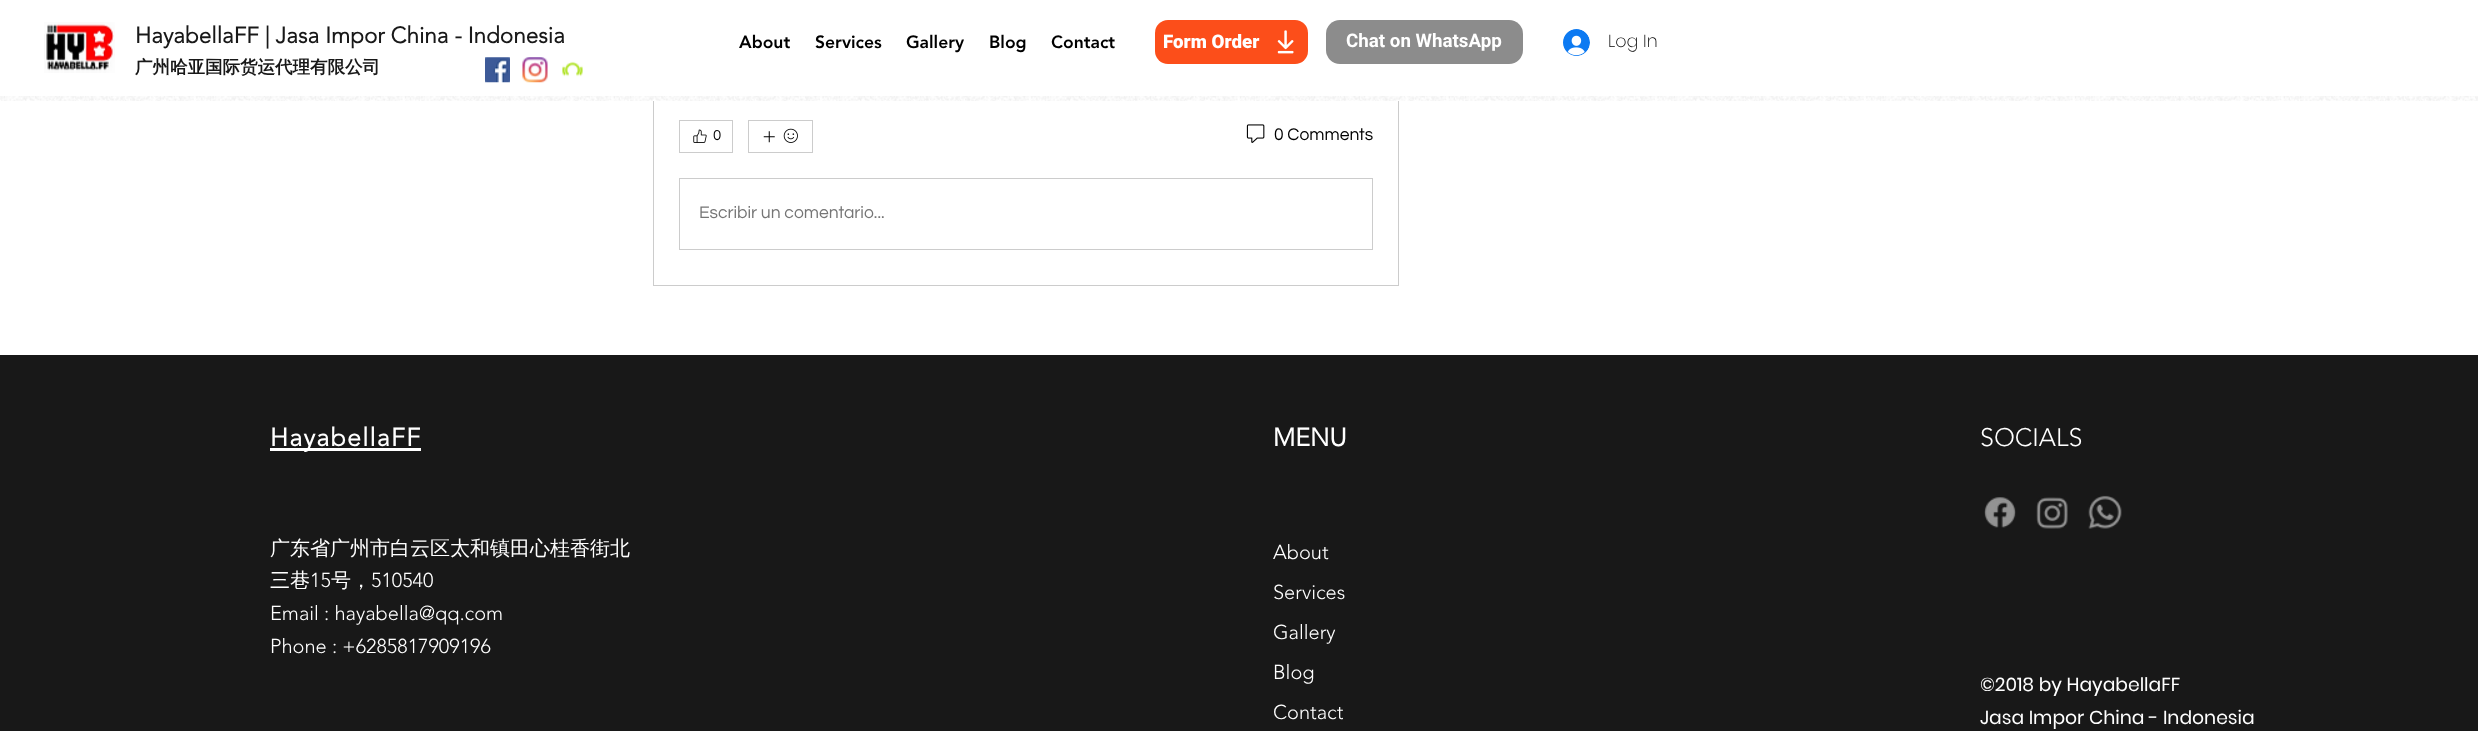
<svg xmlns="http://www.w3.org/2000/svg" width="2478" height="731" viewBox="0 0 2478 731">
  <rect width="100%" height="100%" fill="rgb(255,255,255)"/>
  <rect x="653.5" y="-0.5" width="745" height="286" fill="none" stroke="rgb(204,204,204)"/>
  <rect x="653" y="0" width="746" height="101" fill="rgb(255,255,255)"/>
  <image x="0" y="96" width="2478" height="5" href="pic1.png"/>
  <image x="44" y="22" width="71" height="51" href="pic2.png"/>
  <text x="135" y="43" font-family="'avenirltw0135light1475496'" font-size="22.5" font-weight="bold" fill="rgb(24,24,24)">HayabellaFF | Jasa Impor China - Indonesia</text>
  <g font-family="'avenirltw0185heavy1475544'" font-size="17.5" font-weight="900" fill="rgb(0,0,0)">
    <text x="739" y="48">About</text>
    <text x="815" y="48">Services</text>
    <text x="906" y="48">Gallery</text>
    <text x="989" y="48">Blog</text>
    <text x="1051" y="48">Contact</text>
  </g>
  <rect x="1155" y="20" width="153" height="44" rx="13" fill="rgb(252,78,26)"/>
  <text x="1163" y="48" font-family="Roboto" font-size="18.75" font-weight="900" fill="rgb(255,255,255)">Form Order</text>
  <image x="1277" y="30" width="17" height="24" href="pic3.png"/>
  <rect x="1326" y="20" width="197" height="44" rx="14" fill="rgb(140,140,140)"/>
  <text x="1346" y="47" font-family="Roboto" font-size="18.75" font-weight="bold" fill="rgb(255,255,255)">Chat on WhatsApp</text>
  <image x="1563" y="29" width="27" height="27" href="pic4.png"/>
  <text x="1608" y="47" font-family="Poppins" font-size="17.5" font-weight="200" fill="rgb(0,0,0)">Log In</text>
  <text x="135" y="73" font-family="WenQuanYi Zen Hei" font-size="17.5" font-weight="bold" fill="rgb(24,24,24)">广州哈亚国际货运代理有限公司</text>
  <image x="485" y="57" width="25" height="26" href="pic5.png"/>
  <image x="522" y="57" width="26" height="26" href="pic6.png"/>
  <image x="562" y="61" width="21" height="16" href="pic7.png"/>
  <rect x="679.5" y="120.5" width="53" height="32" fill="none" stroke="rgb(204,204,204)"/>
  <image x="693" y="129" width="14" height="14" href="pic8.png"/>
  <text x="713" y="140" font-family="Questrial" font-size="15" fill="rgb(0,0,0)">0</text>
  <rect x="748.5" y="120.5" width="64" height="32" fill="none" stroke="rgb(204,204,204)"/>
  <image x="763" y="131" width="12" height="12" href="pic9.png"/>
  <image x="783" y="128" width="15" height="15" href="pic10.png"/>
  <image x="1246" y="124" width="19" height="19" href="pic11.png"/>
  <text x="1274" y="140" font-family="Questrial" font-size="17.5" fill="rgb(0,0,0)">0 Comments</text>
  <rect x="679.5" y="178.5" width="693" height="71" fill="none" stroke="rgb(204,204,204)"/>
  <text x="699" y="218" font-family="Questrial" font-size="17.5" fill="rgb(117,117,117)">Escribir un comentario...</text>
  <rect x="0" y="355" width="2478" height="376" fill="rgb(24,24,24)"/>
  <rect x="270" y="448" width="151" height="3" fill="rgb(255,255,255)"/>
  <text x="270" y="446" font-family="'avenirltw0135light1475496'" font-size="25" font-weight="bold" letter-spacing="1.25" fill="rgb(255,255,255)">HayabellaFF</text>
  <g font-family="WenQuanYi Zen Hei" font-size="20" font-weight="500" fill="rgb(255,255,255)">
    <text>
      <tspan x="270" y="555">广东省广州市白云区太和镇田心桂香街北</tspan>
      <tspan x="270" y="587">三巷</tspan>
    </text>
  </g>
  <text x="310" y="587" font-family="'avenirltw0135light1475496'" font-size="20" font-weight="300" fill="rgb(255,255,255)">15</text>
  <text x="331" y="587" font-family="WenQuanYi Zen Hei" font-size="20" font-weight="500" fill="rgb(255,255,255)">号，</text>
  <g font-family="'avenirltw0135light1475496'" font-size="20" font-weight="300" fill="rgb(255,255,255)">
    <text x="371" y="587">510540</text>
    <text>
      <tspan x="270" y="620">Email : hayabella@qq.com</tspan>
      <tspan x="270" y="653">Phone : +6285817909196</tspan>
    </text>
  </g>
  <text x="1273" y="446" font-family="'avenirltw0135light1475496'" font-size="25" font-weight="bold" fill="rgb(255,255,255)">MENU</text>
  <g font-family="'avenirltw0135light1475496'" font-size="20" font-weight="300" fill="rgb(255,255,255)">
    <text x="1273" y="559">About</text>
    <text x="1273" y="599">Services</text>
    <text x="1273" y="639">Gallery</text>
    <text x="1273" y="679">Blog</text>
    <text x="1273" y="719">Contact</text>
  </g>
  <text x="1980" y="446" font-family="'avenirltw0135light1475496'" font-size="25" font-weight="300" fill="rgb(255,255,255)">SOCIALS</text>
  <image x="1984" y="497" width="32" height="31" href="pic12.png"/>
  <image x="2036" y="497" width="32" height="32" href="pic13.png"/>
  <image x="2088" y="495" width="34" height="34" href="pic14.png"/>
  <g font-family="Poppins" font-size="18.75" fill="rgb(255,255,255)">
    <text>
      <tspan x="1980" y="691">©2018 by HayabellaFF</tspan>
      <tspan x="1980" y="724">Jasa Impor China - Indonesia</tspan>
    </text>
  </g>
</svg>
